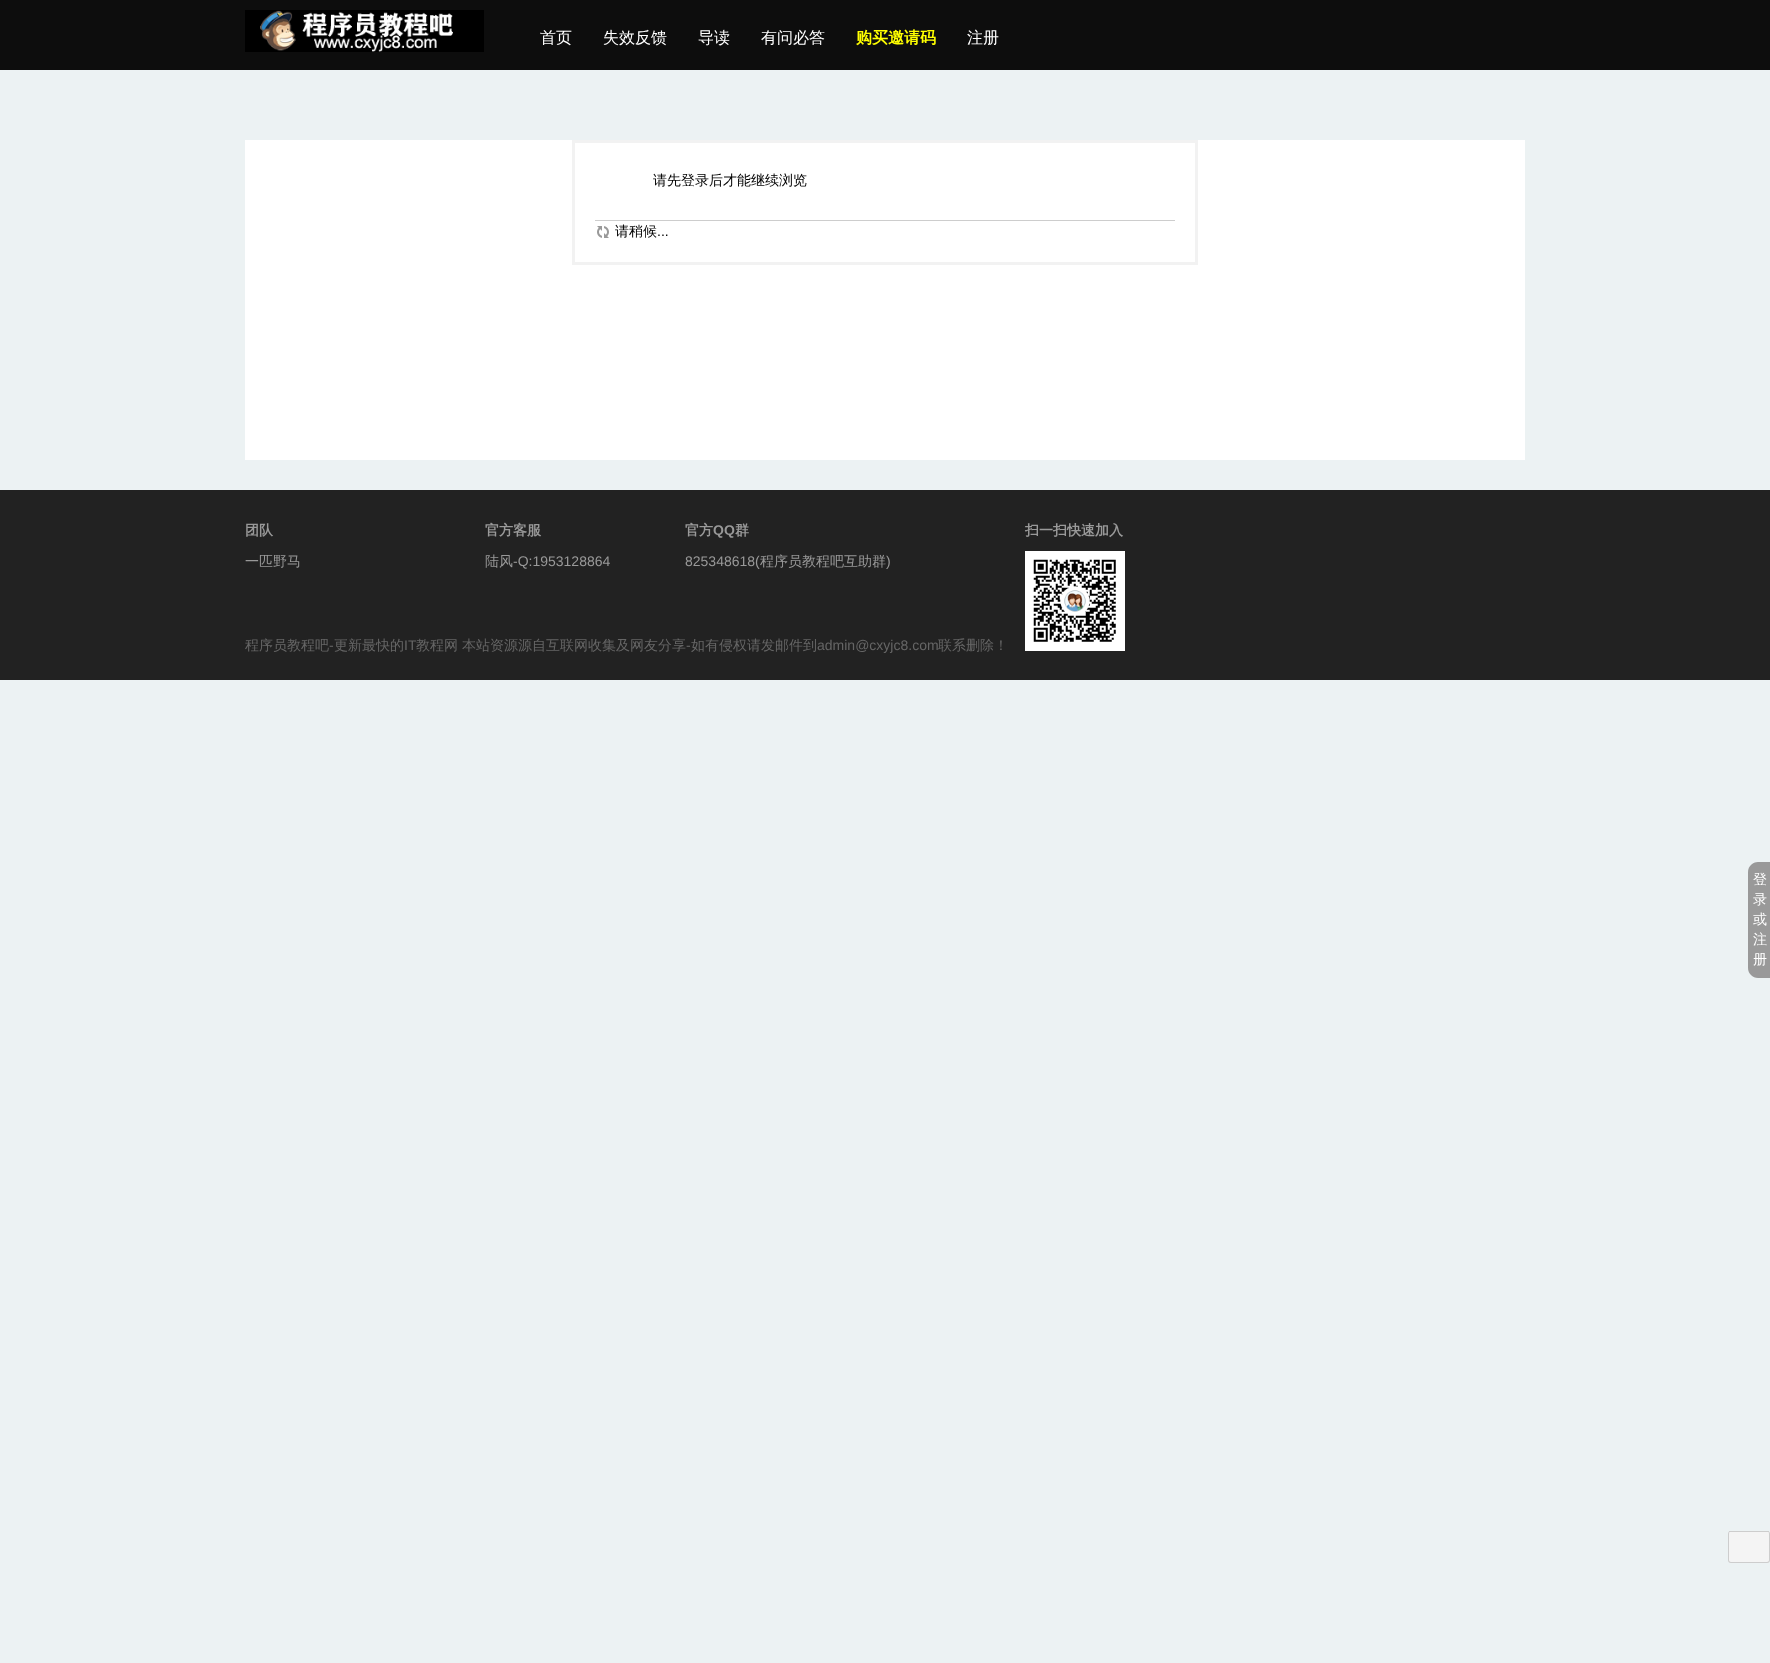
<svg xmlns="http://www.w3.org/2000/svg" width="1770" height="1663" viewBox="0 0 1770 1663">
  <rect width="100%" height="100%" fill="rgb(236,242,243)"/>
  <rect x="0" y="0" width="1770" height="70" fill="rgb(13,13,13)"/>
  <image x="245" y="10" width="239" height="42" href="pic1.png"/>
  <g font-family="WenQuanYi Zen Hei" font-size="16" font-weight="500" fill="rgb(255,255,255)">
    <text x="540" y="43">首页</text>
    <text x="603" y="43">失效反馈</text>
    <text x="698" y="43">导读</text>
    <text x="761" y="43">有问必答</text>
  </g>
  <text x="856" y="43" font-family="WenQuanYi Zen Hei" font-size="16" font-weight="bold" fill="rgb(255,255,0)">购买邀请码</text>
  <text x="967" y="43" font-family="WenQuanYi Zen Hei" font-size="16" font-weight="500" fill="rgb(255,255,255)">注册</text>
  <rect x="245" y="140" width="1280" height="320" fill="rgb(255,255,255)"/>
  <rect x="573.5" y="141.5" width="623" height="122" fill="none" stroke="rgb(242,242,242)" stroke-width="3"/>
  <text x="653" y="185" font-family="WenQuanYi Zen Hei" font-size="14" font-weight="500" fill="rgb(0,0,0)">请先登录后才能继续浏览</text>
  <rect x="595" y="220" width="580" height="1" fill="rgb(205,205,205)"/>
  <image x="597" y="226" width="12" height="12" href="pic2.png"/>
  <text x="615" y="236" font-family="WenQuanYi Zen Hei" font-size="14" font-weight="500" fill="rgb(0,0,0)">请稍候</text>
  <text x="657" y="236" font-family="Liberation Sans" font-size="14" fill="rgb(0,0,0)">...</text>
  <rect x="0" y="490" width="1770" height="190" fill="rgb(34,34,34)"/>
  <text x="245" y="535" font-family="WenQuanYi Zen Hei" font-size="14" font-weight="bold" fill="rgb(153,153,153)">团队</text>
  <text x="245" y="566" font-family="WenQuanYi Zen Hei" font-size="14" font-weight="500" fill="rgb(153,153,153)">一匹野马</text>
  <text x="485" y="535" font-family="WenQuanYi Zen Hei" font-size="14" font-weight="bold" fill="rgb(153,153,153)">官方客服</text>
  <text x="485" y="566" font-family="WenQuanYi Zen Hei" font-size="14" font-weight="500" fill="rgb(153,153,153)">陆风</text>
  <text x="513" y="566" font-family="Liberation Sans" font-size="14" fill="rgb(153,153,153)">-Q:1953128864</text>
  <text x="685" y="535" font-family="WenQuanYi Zen Hei" font-size="14" font-weight="bold" fill="rgb(153,153,153)">官方</text>
  <text x="713" y="535" font-family="Liberation Sans" font-size="14" font-weight="bold" fill="rgb(153,153,153)">QQ</text>
  <text x="735" y="535" font-family="WenQuanYi Zen Hei" font-size="14" font-weight="bold" fill="rgb(153,153,153)">群</text>
  <text x="685" y="566" font-family="Liberation Sans" font-size="14" fill="rgb(153,153,153)">825348618(</text>
  <text x="760" y="566" font-family="WenQuanYi Zen Hei" font-size="14" font-weight="500" fill="rgb(153,153,153)">程序员教程吧互助群</text>
  <text x="886" y="566" font-family="Liberation Sans" font-size="14" fill="rgb(153,153,153)">)</text>
  <text x="1025" y="535" font-family="WenQuanYi Zen Hei" font-size="14" font-weight="bold" fill="rgb(153,153,153)">扫一扫快速加入</text>
  <image x="1025" y="551" width="100" height="100" href="pic3.png"/>
  <text x="245" y="650" font-family="WenQuanYi Zen Hei" font-size="14" font-weight="500" fill="rgb(102,102,102)">程序员教程吧</text>
  <text x="329" y="650" font-family="Liberation Sans" font-size="14" fill="rgb(102,102,102)">-</text>
  <text x="334" y="650" font-family="WenQuanYi Zen Hei" font-size="14" font-weight="500" fill="rgb(102,102,102)">更新最快的</text>
  <text x="404" y="650" font-family="Liberation Sans" font-size="14" fill="rgb(102,102,102)">IT</text>
  <g font-family="WenQuanYi Zen Hei" font-size="14" font-weight="500" fill="rgb(102,102,102)">
    <text x="416" y="650">教程网</text>
    <text x="462" y="650">本站资源源自互联网收集及网友分享</text>
  </g>
  <text x="686" y="650" font-family="Liberation Sans" font-size="14" fill="rgb(102,102,102)">-</text>
  <text x="691" y="650" font-family="WenQuanYi Zen Hei" font-size="14" font-weight="500" fill="rgb(102,102,102)">如有侵权请发邮件到</text>
  <text x="817" y="650" font-family="Liberation Sans" font-size="14" fill="rgb(102,102,102)">admin@cxyjc8.com</text>
  <text x="938" y="650" font-family="WenQuanYi Zen Hei" font-size="14" font-weight="500" fill="rgb(102,102,102)">联系删除！</text>
  <path d="M1758 862H1770V978H1758C1752.5 978 1748 973.5 1748 968V872C1748 866.5 1752.5 862 1758 862Z" fill="rgb(153,153,153)"/>
  <g font-family="WenQuanYi Zen Hei" font-size="14" font-weight="500" fill="rgb(255,255,255)">
    <text>
      <tspan x="1753" y="884">登</tspan>
      <tspan x="1753" y="904">录</tspan>
      <tspan x="1753" y="924">或</tspan>
      <tspan x="1753" y="944">注</tspan>
      <tspan x="1753" y="964">册</tspan>
    </text>
  </g>
  <rect x="1728" y="1531" width="42" height="32" rx="3" fill="rgb(244,244,244)"/>
  <path d="M1731 1531H1767C1769 1531 1770 1532 1770 1534V1560C1770 1562 1769 1563 1767 1563H1731C1729 1563 1728 1562 1728 1560V1534C1728 1532 1729 1531 1731 1531ZM1731 1531H1767C1768 1531 1769 1532 1769 1534V1560C1769 1561 1768 1562 1767 1562H1731C1730 1562 1729 1561 1729 1560V1534C1729 1532 1730 1531 1731 1531Z" fill="rgb(205,205,205)" fill-rule="evenodd"/>
  <rect x="1729" y="1531" width="40" height="1" fill="rgb(205,205,205)"/>
</svg>
